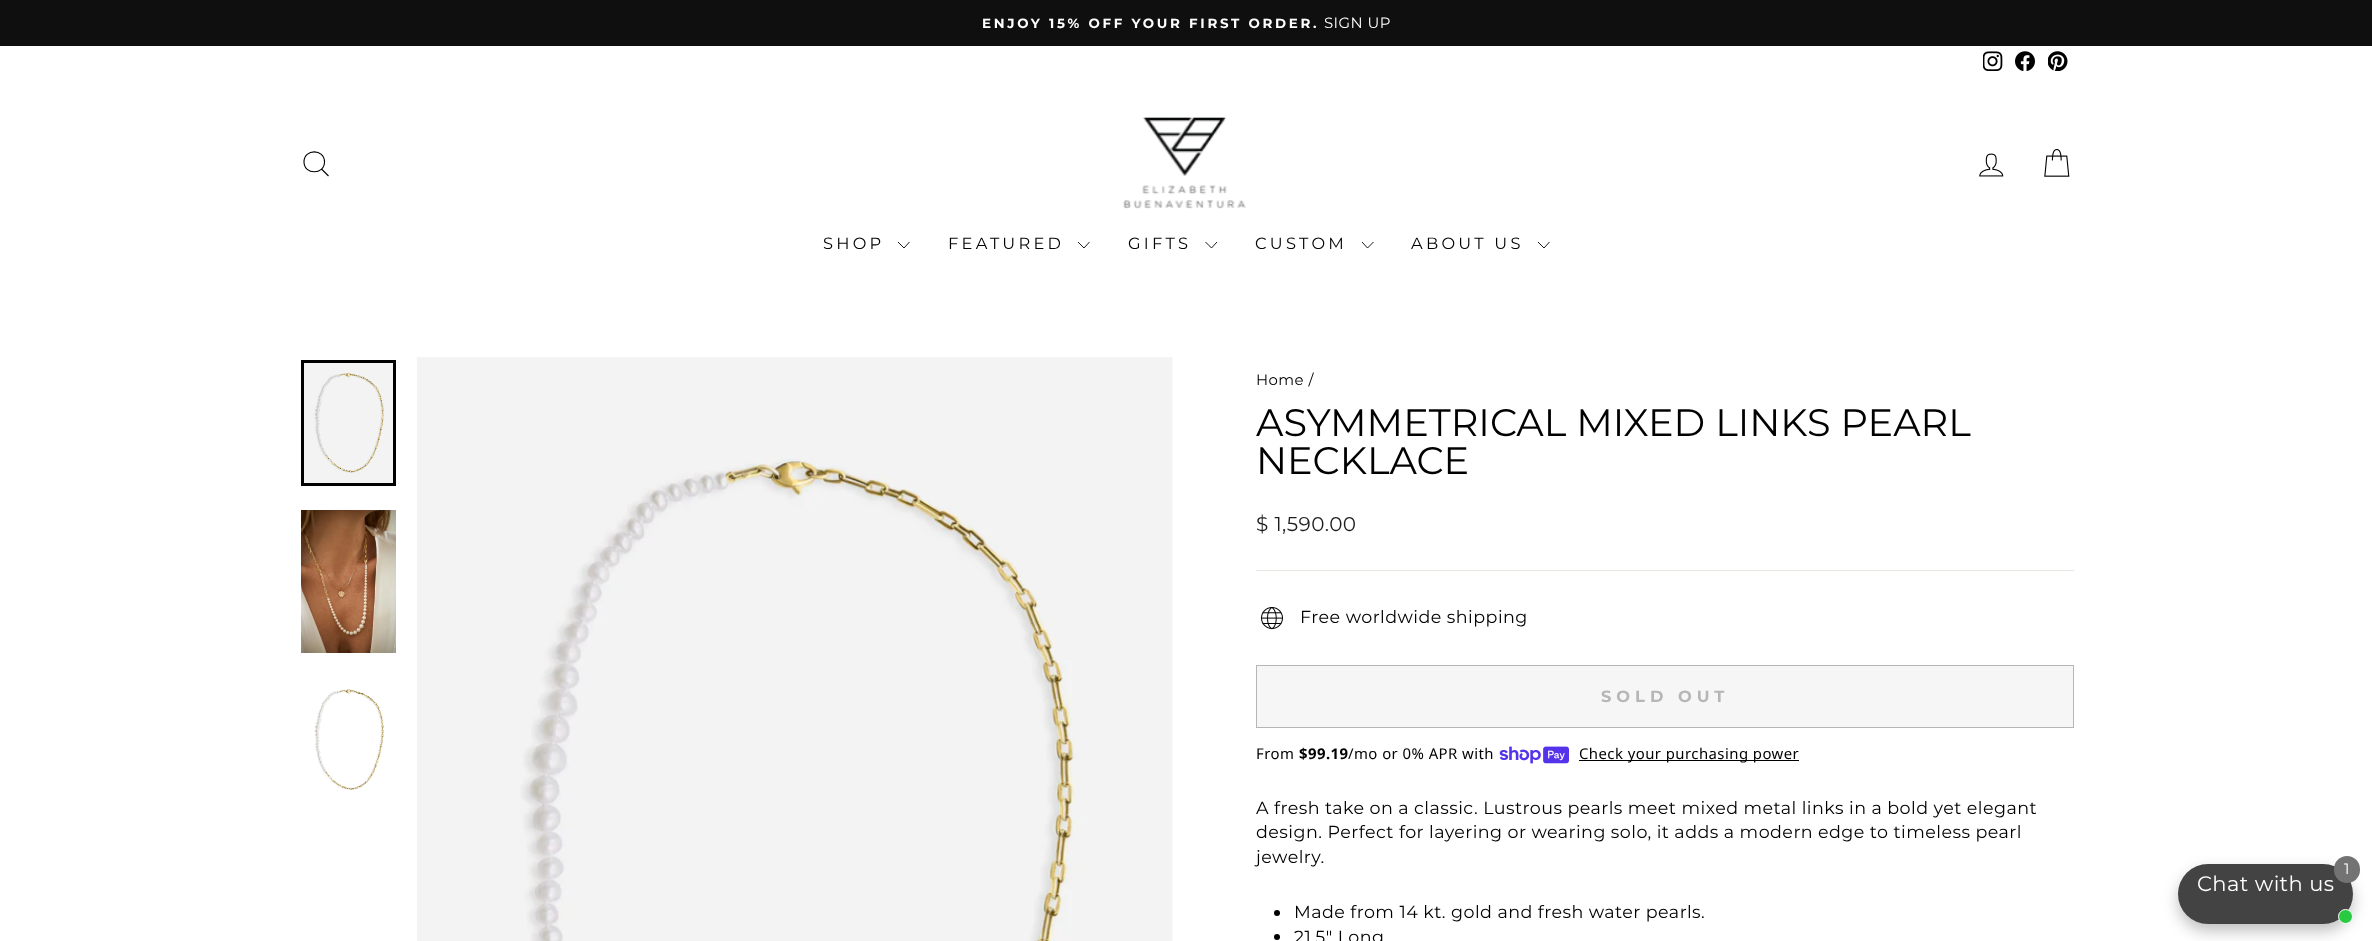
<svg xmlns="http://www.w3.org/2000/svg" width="2372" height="941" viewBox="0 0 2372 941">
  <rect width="100%" height="100%" fill="rgb(255,255,255)"/>
  <rect x="0" y="0" width="2372" height="46" fill="rgb(15,15,15)"/>
  <text x="982" y="28" font-family="Montserrat" font-size="13.4" font-weight="bold" letter-spacing="2.7" fill="rgb(255,255,255)">ENJOY 15% OFF YOUR FIRST ORDER.</text>
  <text x="1324" y="28" font-family="Montserrat" font-size="14.9" letter-spacing="0.45" fill="rgb(255,255,255)">SIGN UP</text>
  <image x="1983" y="51" width="20" height="20" href="pic1.png"/>
  <image x="2015" y="51" width="20" height="20" href="pic2.png"/>
  <image x="2048" y="51" width="20" height="20" href="pic3.png"/>
  <rect x="0" y="80" width="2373" height="209" fill="rgba(0,0,0,0.2)" filter="blur(0.5px)"/>
  <rect x="0" y="80" width="2372" height="209" fill="rgb(255,255,255)"/>
  <path d="M324.5 162C324.5 175 304 175 304 162C304 148.5 324.5 148.5 324.5 162ZM328.5 176L321.5 169" fill="none" stroke="rgb(0,0,0)" stroke-width="1.1"/>
  <image x="1123" y="117" width="123" height="92" href="pic4.png"/>
  <image x="1979" y="153" width="25" height="24" href="pic5.png"/>
  <image x="2044" y="149" width="26" height="28" href="pic6.png"/>
  <text x="823" y="249" font-family="Montserrat" font-size="16.25" letter-spacing="3.25" fill="rgb(0,0,0)">SHOP</text>
  <path d="M898 242L904 248L909.5 242" fill="none" stroke="rgb(0,0,0)" stroke-width="0.9"/>
  <text x="948" y="249" font-family="Montserrat" font-size="16.25" letter-spacing="3.25" fill="rgb(0,0,0)">FEATURED</text>
  <path d="M1078 242L1084 248L1089.5 242" fill="none" stroke="rgb(0,0,0)" stroke-width="0.9"/>
  <text x="1128" y="249" font-family="Montserrat" font-size="16.25" letter-spacing="3.25" fill="rgb(0,0,0)">GIFTS</text>
  <path d="M1205.5 242L1211.5 248L1217 242" fill="none" stroke="rgb(0,0,0)" stroke-width="0.9"/>
  <text x="1255" y="249" font-family="Montserrat" font-size="16.25" letter-spacing="3.25" fill="rgb(0,0,0)">CUSTOM</text>
  <path d="M1362 242L1367.5 248L1373.5 242" fill="none" stroke="rgb(0,0,0)" stroke-width="0.9"/>
  <text x="1411" y="249" font-family="Montserrat" font-size="16.25" letter-spacing="3.25" fill="rgb(0,0,0)">ABOUT US</text>
  <path d="M1538 242L1544 248L1549.5 242" fill="none" stroke="rgb(0,0,0)" stroke-width="0.9"/>
  <image x="301" y="363" width="95" height="124" href="pic7.png"/>
  <rect x="302.5" y="361.5" width="92" height="123" fill="none" stroke="rgb(0,0,0)" stroke-width="3"/>
  <image x="301" y="510" width="95" height="143" href="pic8.png"/>
  <image x="314" y="689" width="70" height="101" href="pic9.png"/>
  <image x="417" y="357" width="756" height="584" href="pic10.png"/>
  <text x="1256" y="385" font-family="Montserrat" font-size="14.9" letter-spacing="0.45" fill="rgb(0,0,0)">Home /</text>
  <g font-family="Montserrat" font-size="38.25" fill="rgb(0,0,0)">
    <text>
      <tspan x="1256" y="436">ASYMMETRICAL MIXED LINKS PEARL</tspan>
      <tspan x="1256" y="474">NECKLACE</tspan>
    </text>
  </g>
  <text x="1256" y="531" font-family="Montserrat" font-size="20" letter-spacing="0.45" fill="rgb(28,29,29)">$ 1,590.00</text>
  <rect x="1256" y="570" width="818" height="1" fill="rgb(232,232,225)"/>
  <image x="1261" y="607" width="22" height="23" href="pic11.png"/>
  <text x="1300" y="623" font-family="Montserrat" font-size="17.5" letter-spacing="0.45" fill="rgb(0,0,0)">Free worldwide shipping</text>
  <rect x="1256.5" y="665.5" width="817" height="62" fill="rgb(246,246,246)" stroke="rgb(182,182,182)"/>
  <text x="1601" y="702" font-family="Montserrat" font-size="16.25" font-weight="bold" letter-spacing="5" fill="rgb(182,182,182)">SOLD OUT</text>
  <text x="1256" y="759" font-family="Noto Sans" font-size="14.9" letter-spacing="0.45" fill="rgb(0,0,0)">From</text>
  <text x="1299" y="759" font-family="Noto Sans" font-size="14.9" font-weight="bold" letter-spacing="0.45" fill="rgb(0,0,0)">$99.19</text>
  <text x="1348" y="759" font-family="Noto Sans" font-size="14.9" letter-spacing="0.45" fill="rgb(0,0,0)">/mo or 0% APR with</text>
  <image x="1499" y="746" width="70" height="18" href="pic12.png"/>
  <rect x="1579" y="760" width="220" height="1" fill="rgb(0,0,0)"/>
  <text x="1579" y="759" font-family="Noto Sans" font-size="14.9" letter-spacing="0.45" fill="rgb(0,0,0)">Check your purchasing power</text>
  <g font-family="Montserrat" font-size="17.5" letter-spacing="0.45" fill="rgb(0,0,0)">
    <text>
      <tspan x="1256" y="814">A fresh take on a classic. Lustrous pearls meet mixed metal links in a bold yet elegant</tspan>
      <tspan x="1256" y="838">design. Perfect for layering or wearing solo, it adds a modern edge to timeless pearl</tspan>
      <tspan x="1256" y="863">jewelry.</tspan>
    </text>
  </g>
  <circle cx="1277" cy="913" r="3" fill="rgb(0,0,0)"/>
  <text x="1294" y="918" font-family="Montserrat" font-size="17.5" letter-spacing="0.45" fill="rgb(0,0,0)">Made from 14 kt. gold and fresh water pearls.</text>
  <circle cx="1277" cy="937" r="3" fill="rgb(0,0,0)"/>
  <text x="1294" y="943" font-family="Montserrat" font-size="17.5" letter-spacing="0.45" fill="rgb(0,0,0)">21.5" Long</text>
  <rect x="2178" y="871" width="175" height="60" rx="30" fill="rgba(0,0,0,0.25)" filter="blur(7.5px)"/>
  <rect x="2178" y="864" width="175" height="60" rx="30" fill="rgb(67,67,67)"/>
  <rect x="2334" y="856" width="26" height="27" rx="13" fill="rgb(115,115,115)"/>
  <text x="2344" y="874" font-family="Montserrat" font-size="15" letter-spacing="0.45" fill="rgb(255,255,255)">1</text>
  <text x="2197" y="891" font-family="Montserrat" font-size="21" letter-spacing="0.45" fill="rgb(255,255,255)">Chat with us</text>
  <circle cx="2345.5" cy="916.5" r="7" fill="rgb(39,202,64)" stroke="rgb(255,255,255)"/>
</svg>
